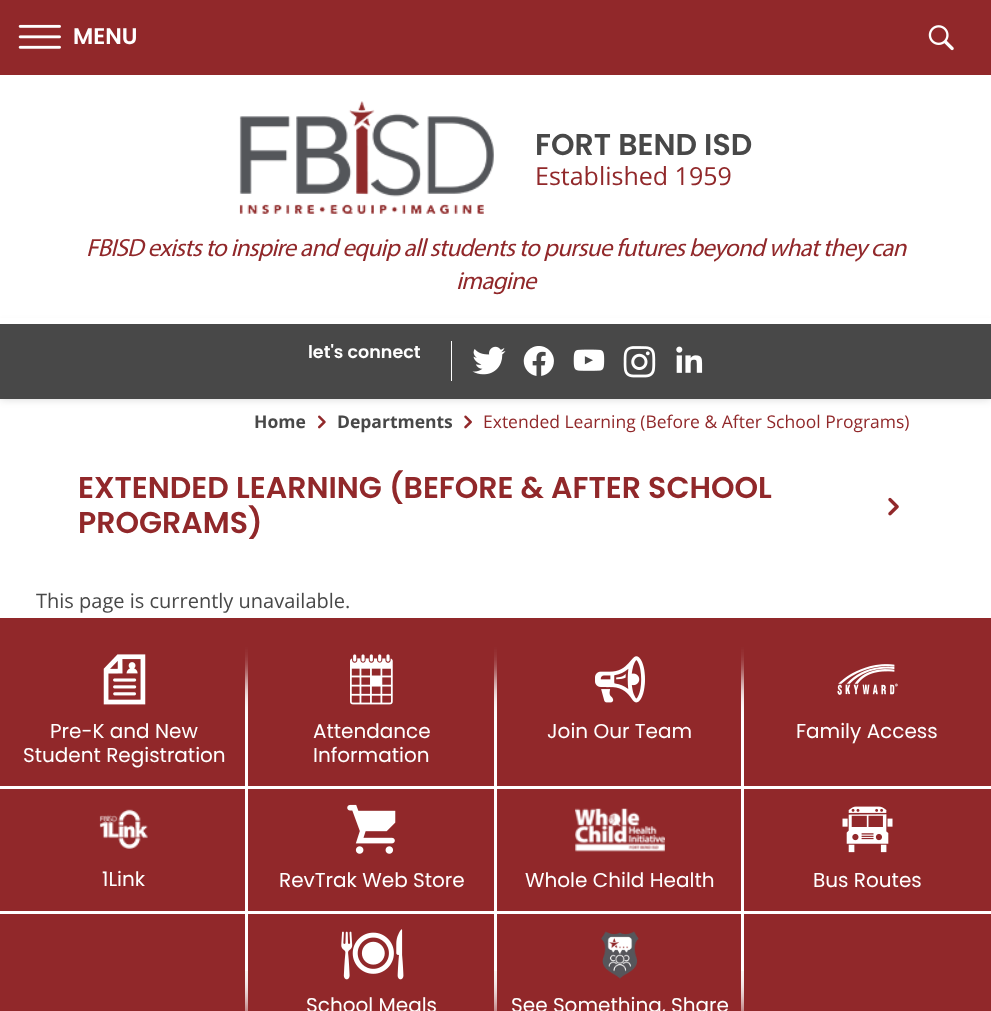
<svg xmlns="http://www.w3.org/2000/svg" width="991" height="1011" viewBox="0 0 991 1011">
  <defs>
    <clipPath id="clip1"><rect x="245" y="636" width="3" height="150"/></clipPath>
    <clipPath id="clip2"><path d="M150 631H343V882H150ZM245 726H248V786H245Z" clip-rule="evenodd"/></clipPath>
    <clipPath id="clip3"><rect x="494" y="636" width="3" height="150"/></clipPath>
    <clipPath id="clip4"><path d="M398 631H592V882H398ZM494 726H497V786H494Z" clip-rule="evenodd"/></clipPath>
    <clipPath id="clip5"><rect x="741" y="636" width="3" height="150"/></clipPath>
    <clipPath id="clip6"><path d="M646 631H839V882H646ZM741 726H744V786H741Z" clip-rule="evenodd"/></clipPath>
    <clipPath id="clip7"><rect x="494" y="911" width="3" height="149"/></clipPath>
    <clipPath id="clip8"><rect x="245" y="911" width="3" height="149"/></clipPath>
    <clipPath id="clip9"><rect x="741" y="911" width="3" height="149"/></clipPath>
  </defs>
  <rect width="100%" height="100%" fill="rgb(255,255,255)"/>
  <rect x="0" y="0" width="991" height="75" fill="rgb(145,40,42)"/>
  <image x="18" y="24" width="43" height="25" href="pic1.png"/>
  <text x="73" y="44" font-family="Poppins" font-size="22.5" font-weight="600" fill="rgb(255,255,255)">MENU</text>
  <image x="928" y="25" width="26" height="26" href="pic2.png"/>
  <rect x="0" y="324" width="991" height="75" fill="rgba(0,0,0,0.16)" filter="blur(4px)"/>
  <rect x="0" y="318" width="991" height="6" fill="rgb(255,255,255)"/>
  <image x="239" y="101" width="255" height="113" href="pic3.png"/>
  <text x="535" y="155" font-family="Poppins" font-size="30" font-weight="600" fill="rgb(72,72,72)">FORT BEND ISD</text>
  <text x="535" y="185" font-family="Open Sans" font-size="25" fill="rgb(145,40,42)">Established 1959</text>
  <g font-family="Myriad" font-size="25" font-style="italic" letter-spacing="-0.75" fill="rgb(145,40,42)">
    <text x="86" y="256">FBISD exists to inspire and equip all students to pursue futures beyond what they can</text>
    <text x="456" y="289">imagine</text>
  </g>
  <rect x="0" y="324" width="991" height="75" fill="rgb(72,72,72)"/>
  <text x="308" y="358" font-family="Poppins" font-size="17.5" font-weight="600" fill="rgb(255,255,255)">let's connect</text>
  <rect x="451" y="341" width="1" height="40" fill="rgb(255,255,255)"/>
  <image x="472" y="346" width="34" height="29" href="pic4.png"/>
  <image x="523" y="346" width="31" height="30" href="pic5.png"/>
  <image x="573" y="349" width="32" height="22" href="pic6.png"/>
  <image x="623" y="346" width="33" height="32" href="pic7.png"/>
  <image x="676" y="346" width="27" height="27" href="pic8.png"/>
  <text x="254" y="428" font-family="Open Sans" font-size="17.5" font-weight="bold" fill="rgb(72,72,72)">Home</text>
  <image x="318" y="415" width="8" height="14" href="pic9.png"/>
  <text x="337" y="428" font-family="Open Sans" font-size="17.5" font-weight="bold" fill="rgb(72,72,72)">Departments</text>
  <image x="464" y="415" width="8" height="14" href="pic10.png"/>
  <text x="483" y="428" font-family="Open Sans" font-size="17.5" fill="rgb(145,40,42)">Extended Learning (Before &amp; After School Programs)</text>
  <g font-family="Poppins" font-size="30" font-weight="600" fill="rgb(145,40,42)">
    <text>
      <tspan x="78" y="498">EXTENDED LEARNING (BEFORE &amp; AFTER SCHOOL</tspan>
      <tspan x="78" y="533">PROGRAMS)</tspan>
    </text>
  </g>
  <image x="888" y="497" width="11" height="19" href="pic11.png"/>
  <text x="36" y="608" font-family="Open Sans" font-size="20" fill="rgb(72,72,72)">This page is currently unavailable.</text>
  <rect x="0" y="618" width="991" height="393" fill="rgb(145,40,42)"/>
  <g clip-path="url(#clip1)">
    <rect x="208" y="689" width="77" height="135" fill="rgb(255,255,255)" filter="blur(19px)"/>
  </g>
  <rect x="245" y="726" width="3" height="60" fill="rgb(255,255,255)"/>
  <image x="103" y="654" width="43" height="51" href="pic12.png"/>
  <g font-family="Poppins" font-size="20" fill="rgb(255,255,255)">
    <text x="50" y="738">Pre-K and New</text>
    <text x="23" y="762">Student Registration</text>
  </g>
  <g clip-path="url(#clip1)">
    <g clip-path="url(#clip2)">
      <rect x="208" y="689" width="77" height="135" fill="rgb(255,255,255)" filter="blur(19px)"/>
    </g>
  </g>
  <rect x="0" y="786" width="248" height="3" fill="rgb(255,255,255)"/>
  <g clip-path="url(#clip3)">
    <rect x="456" y="689" width="78" height="135" fill="rgb(255,255,255)" filter="blur(19px)"/>
  </g>
  <rect x="494" y="726" width="3" height="60" fill="rgb(255,255,255)"/>
  <image x="350" y="654" width="43" height="51" href="pic13.png"/>
  <g font-family="Poppins" font-size="20" fill="rgb(255,255,255)">
    <text>
      <tspan x="313" y="738">Attendance</tspan>
      <tspan x="313" y="762">Information</tspan>
    </text>
  </g>
  <g clip-path="url(#clip3)">
    <g clip-path="url(#clip4)">
      <rect x="456" y="689" width="78" height="135" fill="rgb(255,255,255)" filter="blur(19px)"/>
    </g>
  </g>
  <g clip-path="url(#clip5)">
    <rect x="704" y="689" width="77" height="135" fill="rgb(255,255,255)" filter="blur(19px)"/>
  </g>
  <rect x="741" y="726" width="3" height="60" fill="rgb(255,255,255)"/>
  <image x="595" y="656" width="50" height="47" href="pic14.png"/>
  <text x="547" y="738" font-family="Poppins" font-size="20" fill="rgb(255,255,255)">Join Our Team</text>
  <g clip-path="url(#clip5)">
    <g clip-path="url(#clip6)">
      <rect x="704" y="689" width="77" height="135" fill="rgb(255,255,255)" filter="blur(19px)"/>
    </g>
  </g>
  <image x="837" y="664" width="61" height="31" href="pic15.png"/>
  <text x="796" y="738" font-family="Poppins" font-size="20" fill="rgb(255,255,255)">Family Access</text>
  <rect x="744" y="786" width="247" height="3" fill="rgb(255,255,255)"/>
  <image x="99" y="809" width="49" height="40" href="pic16.png"/>
  <text x="102" y="886" font-family="Poppins" font-size="20" fill="rgb(255,255,255)">1Link</text>
  <rect x="245" y="786" width="3" height="125" fill="rgb(255,255,255)"/>
  <rect x="0" y="911" width="248" height="3" fill="rgb(255,255,255)"/>
  <rect x="494" y="786" width="3" height="125" fill="rgb(255,255,255)"/>
  <rect x="248" y="786" width="248" height="3" fill="rgb(255,255,255)"/>
  <image x="347" y="804" width="49" height="50" href="pic17.png"/>
  <text x="279" y="887" font-family="Poppins" font-size="20" fill="rgb(255,255,255)">RevTrak Web Store</text>
  <rect x="741" y="786" width="3" height="125" fill="rgb(255,255,255)"/>
  <rect x="496" y="786" width="248" height="3" fill="rgb(255,255,255)"/>
  <image x="575" y="808" width="90" height="44" href="pic18.png"/>
  <text x="525" y="887" font-family="Poppins" font-size="20" fill="rgb(255,255,255)">Whole Child Health</text>
  <image x="842" y="806" width="51" height="47" href="pic19.png"/>
  <text x="813" y="887" font-family="Poppins" font-size="20" fill="rgb(255,255,255)">Bus Routes</text>
  <rect x="744" y="911" width="247" height="3" fill="rgb(255,255,255)"/>
  <g clip-path="url(#clip7)">
    <rect x="456" y="874" width="78" height="135" fill="rgb(255,255,255)" filter="blur(19px)"/>
  </g>
  <image x="341" y="929" width="63" height="51" href="pic20.png"/>
  <g clip-path="url(#clip8)">
    <rect x="208" y="874" width="77" height="135" fill="rgb(255,255,255)" filter="blur(19px)"/>
  </g>
  <rect x="245" y="911" width="3" height="60" fill="rgb(255,255,255)"/>
  <rect x="494" y="911" width="3" height="60" fill="rgb(255,255,255)"/>
  <rect x="248" y="911" width="248" height="3" fill="rgb(255,255,255)"/>
  <text x="306" y="1012" font-family="Poppins" font-size="20" fill="rgb(255,255,255)">School Meals</text>
  <g clip-path="url(#clip9)">
    <rect x="704" y="874" width="77" height="135" fill="rgb(255,255,255)" filter="blur(19px)"/>
  </g>
  <rect x="741" y="911" width="3" height="60" fill="rgb(255,255,255)"/>
  <rect x="496" y="911" width="248" height="3" fill="rgb(255,255,255)"/>
  <image x="601" y="931" width="38" height="48" href="pic21.png"/>
  <text x="511" y="1012" font-family="Poppins" font-size="20" fill="rgb(255,255,255)">See Something, Share</text>
</svg>
